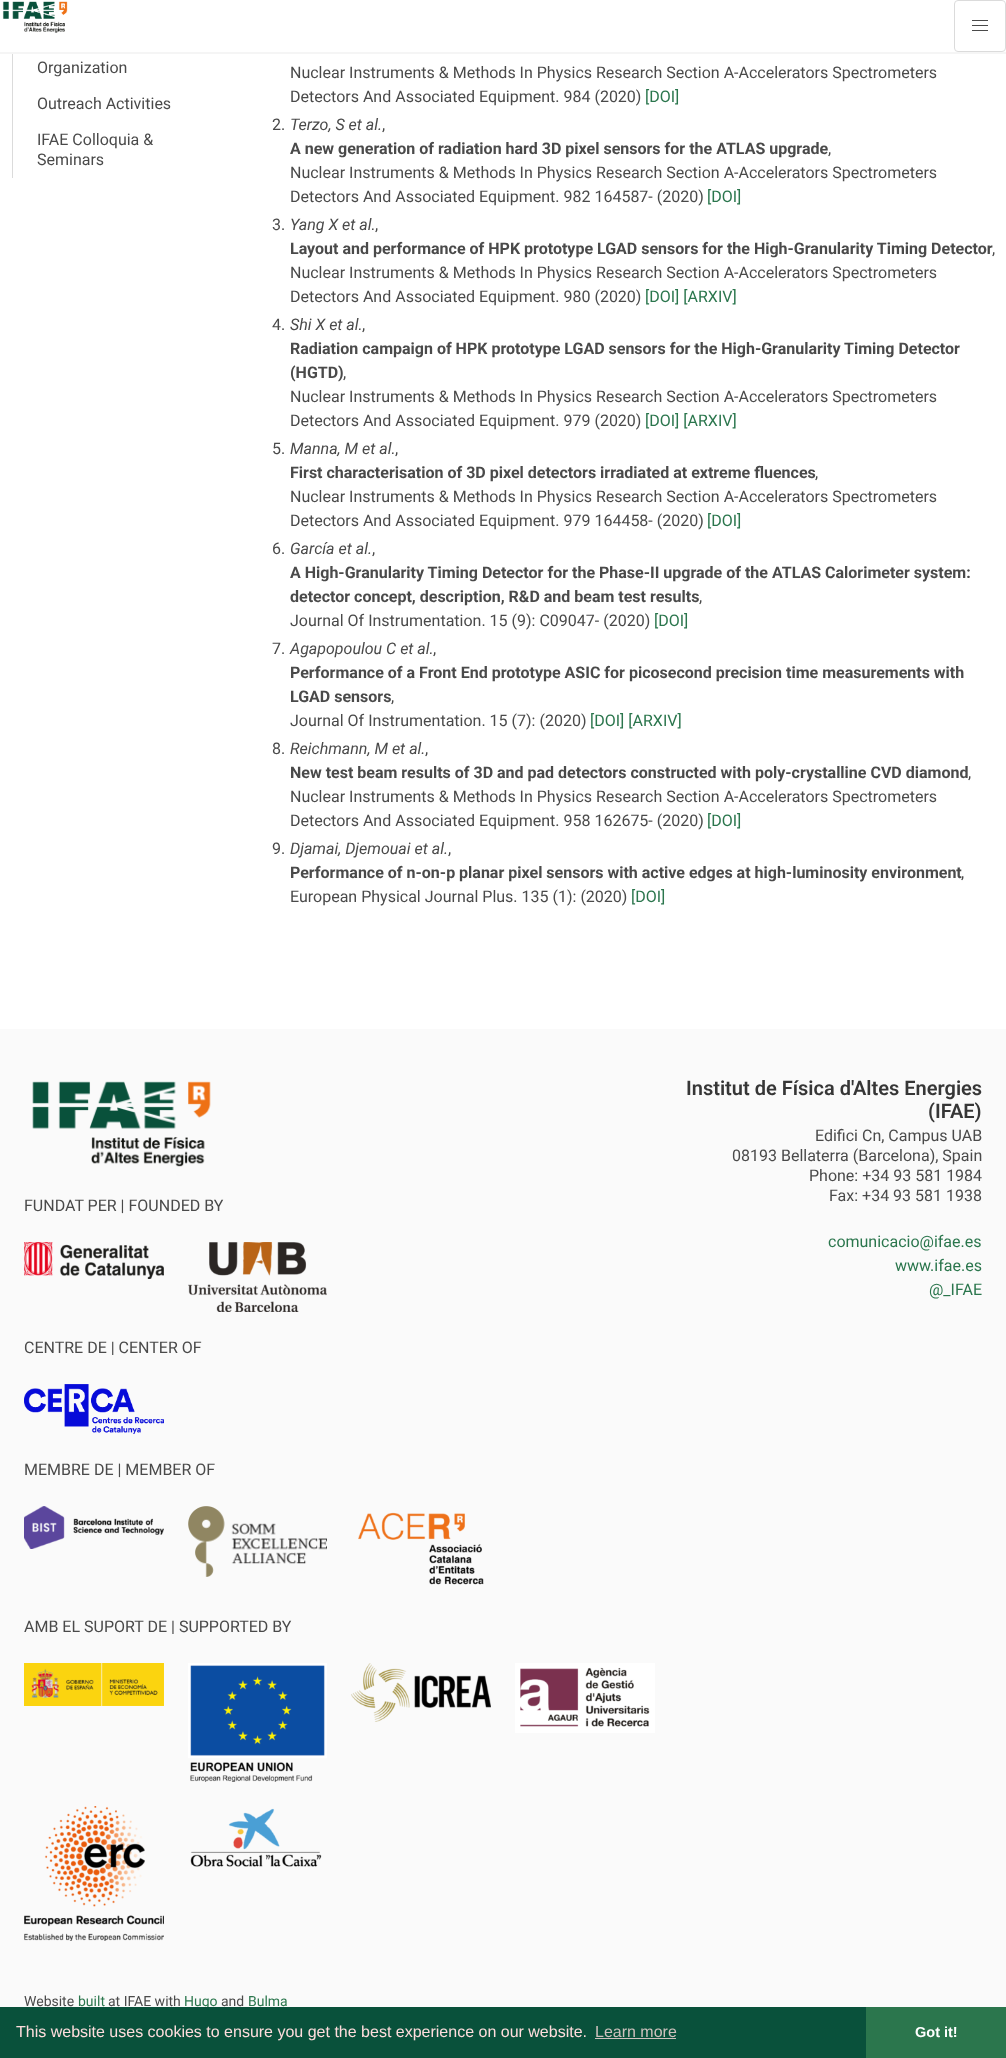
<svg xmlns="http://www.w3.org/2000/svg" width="1006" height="2058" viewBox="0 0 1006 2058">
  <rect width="100%" height="100%" fill="rgb(255,255,255)"/>
  <rect x="0" y="52" width="1006" height="2" fill="rgb(245,245,245)"/>
  <image x="2" y="1" width="66" height="32" href="pic1.png"/>
  <rect x="954.5" y="0.5" width="51" height="51" rx="3.5" fill="none" stroke="rgb(219,219,219)"/>
  <rect x="972" y="20" width="16" height="1" fill="rgb(74,74,74)"/>
  <rect x="972" y="25" width="16" height="1" fill="rgb(74,74,74)"/>
  <rect x="972" y="30" width="16" height="1" fill="rgb(74,74,74)"/>
  <rect x="12" y="54" width="1" height="124" fill="rgb(219,219,219)"/>
  <g font-family="Roboto" font-size="16" fill="rgb(74,74,74)">
    <text x="37" y="73">Organization</text>
    <text x="37" y="109">Outreach Activities</text>
    <text>
      <tspan x="37" y="145">IFAE Colloquia &amp;</tspan>
      <tspan x="37" y="165">Seminars</tspan>
    </text>
    <text>
      <tspan x="290" y="78">Nuclear Instruments &amp; Methods In Physics Research Section A-Accelerators Spectrometers</tspan>
      <tspan x="290" y="102">Detectors And Associated Equipment. 984 (2020)</tspan>
    </text>
  </g>
  <text x="645" y="102" font-family="Roboto" font-size="16" fill="rgb(43,118,77)">[DOI]</text>
  <text x="272" y="130" font-family="Roboto" font-size="16" fill="rgb(74,74,74)">2.</text>
  <text x="290" y="130" font-family="Roboto" font-size="16" font-style="italic" fill="rgb(74,74,74)">Terzo, S et al.</text>
  <text x="382" y="130" font-family="Roboto" font-size="16" fill="rgb(74,74,74)">,</text>
  <text x="290" y="154" font-family="Roboto" font-size="16" font-weight="bold" fill="rgb(74,74,74)">A new generation of radiation hard 3D pixel sensors for the ATLAS upgrade</text>
  <g font-family="Roboto" font-size="16" fill="rgb(74,74,74)">
    <text x="828" y="154">,</text>
    <text>
      <tspan x="290" y="178">Nuclear Instruments &amp; Methods In Physics Research Section A-Accelerators Spectrometers</tspan>
      <tspan x="290" y="202">Detectors And Associated Equipment. 982 164587- (2020)</tspan>
    </text>
  </g>
  <text x="707" y="202" font-family="Roboto" font-size="16" fill="rgb(43,118,77)">[DOI]</text>
  <text x="272" y="230" font-family="Roboto" font-size="16" fill="rgb(74,74,74)">3.</text>
  <text x="290" y="230" font-family="Roboto" font-size="16" font-style="italic" fill="rgb(74,74,74)">Yang X et al.</text>
  <text x="375" y="230" font-family="Roboto" font-size="16" fill="rgb(74,74,74)">,</text>
  <text x="290" y="254" font-family="Roboto" font-size="16" font-weight="bold" fill="rgb(74,74,74)">Layout and performance of HPK prototype LGAD sensors for the High-Granularity Timing Detector</text>
  <g font-family="Roboto" font-size="16" fill="rgb(74,74,74)">
    <text x="992" y="254">,</text>
    <text>
      <tspan x="290" y="278">Nuclear Instruments &amp; Methods In Physics Research Section A-Accelerators Spectrometers</tspan>
      <tspan x="290" y="302">Detectors And Associated Equipment. 980 (2020)</tspan>
    </text>
  </g>
  <text x="645" y="302" font-family="Roboto" font-size="16" fill="rgb(43,118,77)">[DOI] [ARXIV]</text>
  <text x="272" y="330" font-family="Roboto" font-size="16" fill="rgb(74,74,74)">4.</text>
  <text x="290" y="330" font-family="Roboto" font-size="16" font-style="italic" fill="rgb(74,74,74)">Shi X et al.</text>
  <text x="362" y="330" font-family="Roboto" font-size="16" fill="rgb(74,74,74)">,</text>
  <g font-family="Roboto" font-size="16" font-weight="bold" fill="rgb(74,74,74)">
    <text>
      <tspan x="290" y="354">Radiation campaign of HPK prototype LGAD sensors for the High-Granularity Timing Detector</tspan>
      <tspan x="290" y="378">(HGTD)</tspan>
    </text>
  </g>
  <g font-family="Roboto" font-size="16" fill="rgb(74,74,74)">
    <text x="343" y="378">,</text>
    <text>
      <tspan x="290" y="402">Nuclear Instruments &amp; Methods In Physics Research Section A-Accelerators Spectrometers</tspan>
      <tspan x="290" y="426">Detectors And Associated Equipment. 979 (2020)</tspan>
    </text>
  </g>
  <text x="645" y="426" font-family="Roboto" font-size="16" fill="rgb(43,118,77)">[DOI] [ARXIV]</text>
  <text x="272" y="454" font-family="Roboto" font-size="16" fill="rgb(74,74,74)">5.</text>
  <text x="290" y="454" font-family="Roboto" font-size="16" font-style="italic" fill="rgb(74,74,74)">Manna, M et al.</text>
  <text x="395" y="454" font-family="Roboto" font-size="16" fill="rgb(74,74,74)">,</text>
  <text x="290" y="478" font-family="Roboto" font-size="16" font-weight="bold" fill="rgb(74,74,74)">First characterisation of 3D pixel detectors irradiated at extreme fluences</text>
  <g font-family="Roboto" font-size="16" fill="rgb(74,74,74)">
    <text x="815" y="478">,</text>
    <text>
      <tspan x="290" y="502">Nuclear Instruments &amp; Methods In Physics Research Section A-Accelerators Spectrometers</tspan>
      <tspan x="290" y="526">Detectors And Associated Equipment. 979 164458- (2020)</tspan>
    </text>
  </g>
  <text x="707" y="526" font-family="Roboto" font-size="16" fill="rgb(43,118,77)">[DOI]</text>
  <text x="272" y="554" font-family="Roboto" font-size="16" fill="rgb(74,74,74)">6.</text>
  <text x="290" y="554" font-family="Roboto" font-size="16" font-style="italic" fill="rgb(74,74,74)">García et al.</text>
  <text x="372" y="554" font-family="Roboto" font-size="16" fill="rgb(74,74,74)">,</text>
  <g font-family="Roboto" font-size="16" font-weight="bold" fill="rgb(74,74,74)">
    <text>
      <tspan x="290" y="578">A High-Granularity Timing Detector for the Phase-II upgrade of the ATLAS Calorimeter system:</tspan>
      <tspan x="290" y="602">detector concept, description, R&amp;D and beam test results</tspan>
    </text>
  </g>
  <g font-family="Roboto" font-size="16" fill="rgb(74,74,74)">
    <text x="699" y="602">,</text>
    <text x="290" y="626">Journal Of Instrumentation. 15 (9): C09047- (2020)</text>
  </g>
  <text x="654" y="626" font-family="Roboto" font-size="16" fill="rgb(43,118,77)">[DOI]</text>
  <text x="272" y="654" font-family="Roboto" font-size="16" fill="rgb(74,74,74)">7.</text>
  <text x="290" y="654" font-family="Roboto" font-size="16" font-style="italic" fill="rgb(74,74,74)">Agapopoulou C et al.</text>
  <text x="433" y="654" font-family="Roboto" font-size="16" fill="rgb(74,74,74)">,</text>
  <g font-family="Roboto" font-size="16" font-weight="bold" fill="rgb(74,74,74)">
    <text>
      <tspan x="290" y="678">Performance of a Front End prototype ASIC for picosecond precision time measurements with</tspan>
      <tspan x="290" y="702">LGAD sensors</tspan>
    </text>
  </g>
  <g font-family="Roboto" font-size="16" fill="rgb(74,74,74)">
    <text x="391" y="702">,</text>
    <text x="290" y="726">Journal Of Instrumentation. 15 (7): (2020)</text>
  </g>
  <text x="590" y="726" font-family="Roboto" font-size="16" fill="rgb(43,118,77)">[DOI] [ARXIV]</text>
  <text x="272" y="754" font-family="Roboto" font-size="16" fill="rgb(74,74,74)">8.</text>
  <text x="290" y="754" font-family="Roboto" font-size="16" font-style="italic" fill="rgb(74,74,74)">Reichmann, M et al.</text>
  <text x="425" y="754" font-family="Roboto" font-size="16" fill="rgb(74,74,74)">,</text>
  <text x="290" y="778" font-family="Roboto" font-size="16" font-weight="bold" fill="rgb(74,74,74)">New test beam results of 3D and pad detectors constructed with poly-crystalline CVD diamond</text>
  <g font-family="Roboto" font-size="16" fill="rgb(74,74,74)">
    <text x="968" y="778">,</text>
    <text>
      <tspan x="290" y="802">Nuclear Instruments &amp; Methods In Physics Research Section A-Accelerators Spectrometers</tspan>
      <tspan x="290" y="826">Detectors And Associated Equipment. 958 162675- (2020)</tspan>
    </text>
  </g>
  <text x="707" y="826" font-family="Roboto" font-size="16" fill="rgb(43,118,77)">[DOI]</text>
  <text x="272" y="854" font-family="Roboto" font-size="16" fill="rgb(74,74,74)">9.</text>
  <text x="290" y="854" font-family="Roboto" font-size="16" font-style="italic" fill="rgb(74,74,74)">Djamai, Djemouai et al.</text>
  <text x="448" y="854" font-family="Roboto" font-size="16" fill="rgb(74,74,74)">,</text>
  <text x="290" y="878" font-family="Roboto" font-size="16" font-weight="bold" fill="rgb(74,74,74)">Performance of n-on-p planar pixel sensors with active edges at high-luminosity environment</text>
  <g font-family="Roboto" font-size="16" fill="rgb(74,74,74)">
    <text x="961" y="878">,</text>
    <text x="290" y="902">European Physical Journal Plus. 135 (1): (2020)</text>
  </g>
  <text x="631" y="902" font-family="Roboto" font-size="16" fill="rgb(43,118,77)">[DOI]</text>
  <rect x="0" y="1029" width="1006" height="978" fill="rgb(250,250,250)"/>
  <image x="32" y="1081" width="179" height="86" href="pic2.png"/>
  <text x="24" y="1211" font-family="Roboto" font-size="16" fill="rgb(74,74,74)">FUNDAT PER | FOUNDED BY</text>
  <image x="24" y="1242" width="140" height="37" href="pic3.png"/>
  <image x="188" y="1242" width="139" height="70" href="pic4.png"/>
  <text x="24" y="1353" font-family="Roboto" font-size="16" fill="rgb(74,74,74)">CENTRE DE | CENTER OF</text>
  <image x="24" y="1384" width="140" height="50" href="pic5.png"/>
  <text x="24" y="1475" font-family="Roboto" font-size="16" fill="rgb(74,74,74)">MEMBRE DE | MEMBER OF</text>
  <image x="24" y="1506" width="140" height="43" href="pic6.png"/>
  <image x="188" y="1506" width="139" height="71" href="pic7.png"/>
  <image x="358" y="1512" width="126" height="73" href="pic8.png"/>
  <text x="24" y="1632" font-family="Roboto" font-size="16" fill="rgb(74,74,74)">AMB EL SUPORT DE | SUPPORTED BY</text>
  <image x="24" y="1663" width="140" height="43" href="pic9.png"/>
  <image x="188" y="1663" width="139" height="119" href="pic10.png"/>
  <image x="351" y="1663" width="140" height="59" href="pic11.png"/>
  <image x="515" y="1663" width="140" height="70" href="pic12.png"/>
  <image x="24" y="1806" width="140" height="135" href="pic13.png"/>
  <image x="190" y="1808" width="132" height="59" href="pic14.png"/>
  <text x="24" y="2006" font-family="Roboto" font-size="14" fill="rgb(74,74,74)">Website</text>
  <text x="78" y="2006" font-family="Roboto" font-size="14" fill="rgb(43,118,77)">built</text>
  <text x="108" y="2006" font-family="Roboto" font-size="14" fill="rgb(74,74,74)">at IFAE with</text>
  <text x="184" y="2006" font-family="Roboto" font-size="14" fill="rgb(43,118,77)">Hugo</text>
  <text x="221" y="2006" font-family="Roboto" font-size="14" fill="rgb(74,74,74)">and</text>
  <text x="248" y="2006" font-family="Roboto" font-size="14" fill="rgb(43,118,77)">Bulma</text>
  <g font-family="Roboto" font-size="20" font-weight="600" fill="rgb(54,54,54)">
    <text x="686" y="1095">Institut de Física d'Altes Energies</text>
    <text x="928" y="1118">(IFAE)</text>
  </g>
  <g font-family="Roboto" font-size="16" fill="rgb(74,74,74)">
    <text x="815" y="1141">Edifici Cn, Campus UAB</text>
    <text x="732" y="1161">08193 Bellaterra (Barcelona), Spain</text>
    <text x="809" y="1181">Phone: +34 93 581 1984</text>
    <text x="829" y="1201">Fax: +34 93 581 1938</text>
  </g>
  <g font-family="Roboto" font-size="16" fill="rgb(43,118,77)">
    <text x="828" y="1247">comunicacio@ifae.es</text>
    <text x="895" y="1271">www.ifae.es</text>
    <text x="929" y="1295">@_IFAE</text>
  </g>
  <rect x="0" y="2007" width="866" height="51" fill="rgb(9,81,59)"/>
  <text x="16" y="2037" font-family="Liberation Sans" font-size="16" fill="rgb(255,221,221)">This website uses cookies to ensure you get the best experience on our website.</text>
  <text x="595" y="2037" font-family="Liberation Sans" font-size="16" fill="rgb(206,193,189)">Learn more</text>
  <rect x="595" y="2038" width="81" height="1" fill="rgb(206,193,189)"/>
  <rect x="866" y="2007" width="140" height="51" fill="rgb(43,118,77)"/>
  <text x="915" y="2037" font-family="Liberation Sans" font-size="14.5" font-weight="bold" fill="rgb(255,255,255)">Got it!</text>
</svg>
